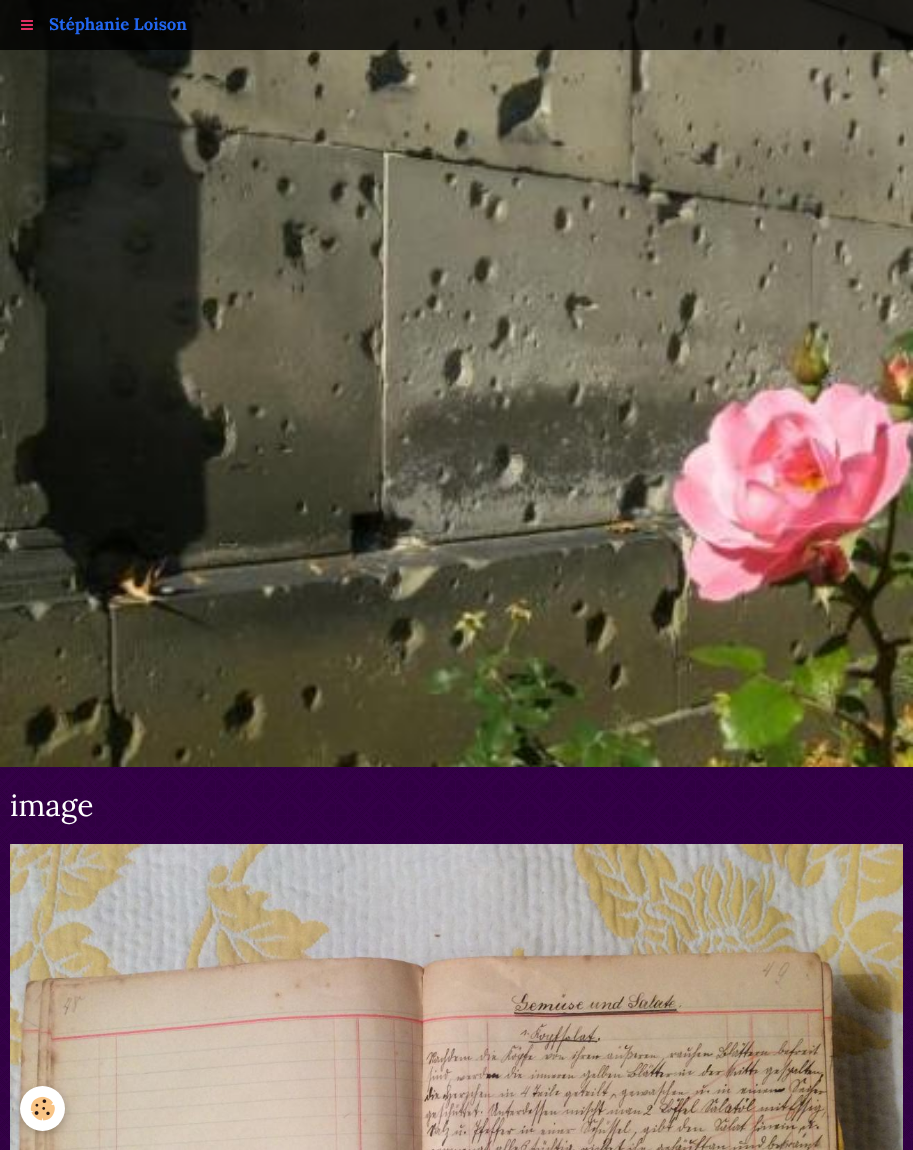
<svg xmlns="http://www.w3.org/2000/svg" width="913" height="1150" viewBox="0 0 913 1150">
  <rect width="100%" height="100%" fill="rgb(52,0,71)"/>
  <image x="0" y="767" width="913" height="383" href="pic1.png"/>
  <image x="0" y="0" width="913" height="767" href="pic2.png"/>
  <rect x="0" y="0" width="913" height="50" fill="rgba(0,0,0,0.8)"/>
  <image x="21" y="20" width="12" height="10" href="pic3.png"/>
  <text x="49" y="30" font-family="Lora" font-size="16.75" font-weight="bold" fill="rgb(34,102,239)">Stéphanie Loison</text>
  <text x="10" y="816" font-family="Lora" font-size="30" fill="rgb(255,255,255)">image</text>
  <image x="10" y="844" width="893" height="306" href="pic4.png"/>
  <rect x="20" y="1089" width="45" height="45" rx="22.5" fill="rgba(0,0,0,0.24)" filter="blur(5px)"/>
  <circle cx="42.5" cy="1108.5" r="22.5" fill="rgb(255,255,255)"/>
  <image x="30" y="1096" width="25" height="25" href="pic5.png"/>
</svg>
